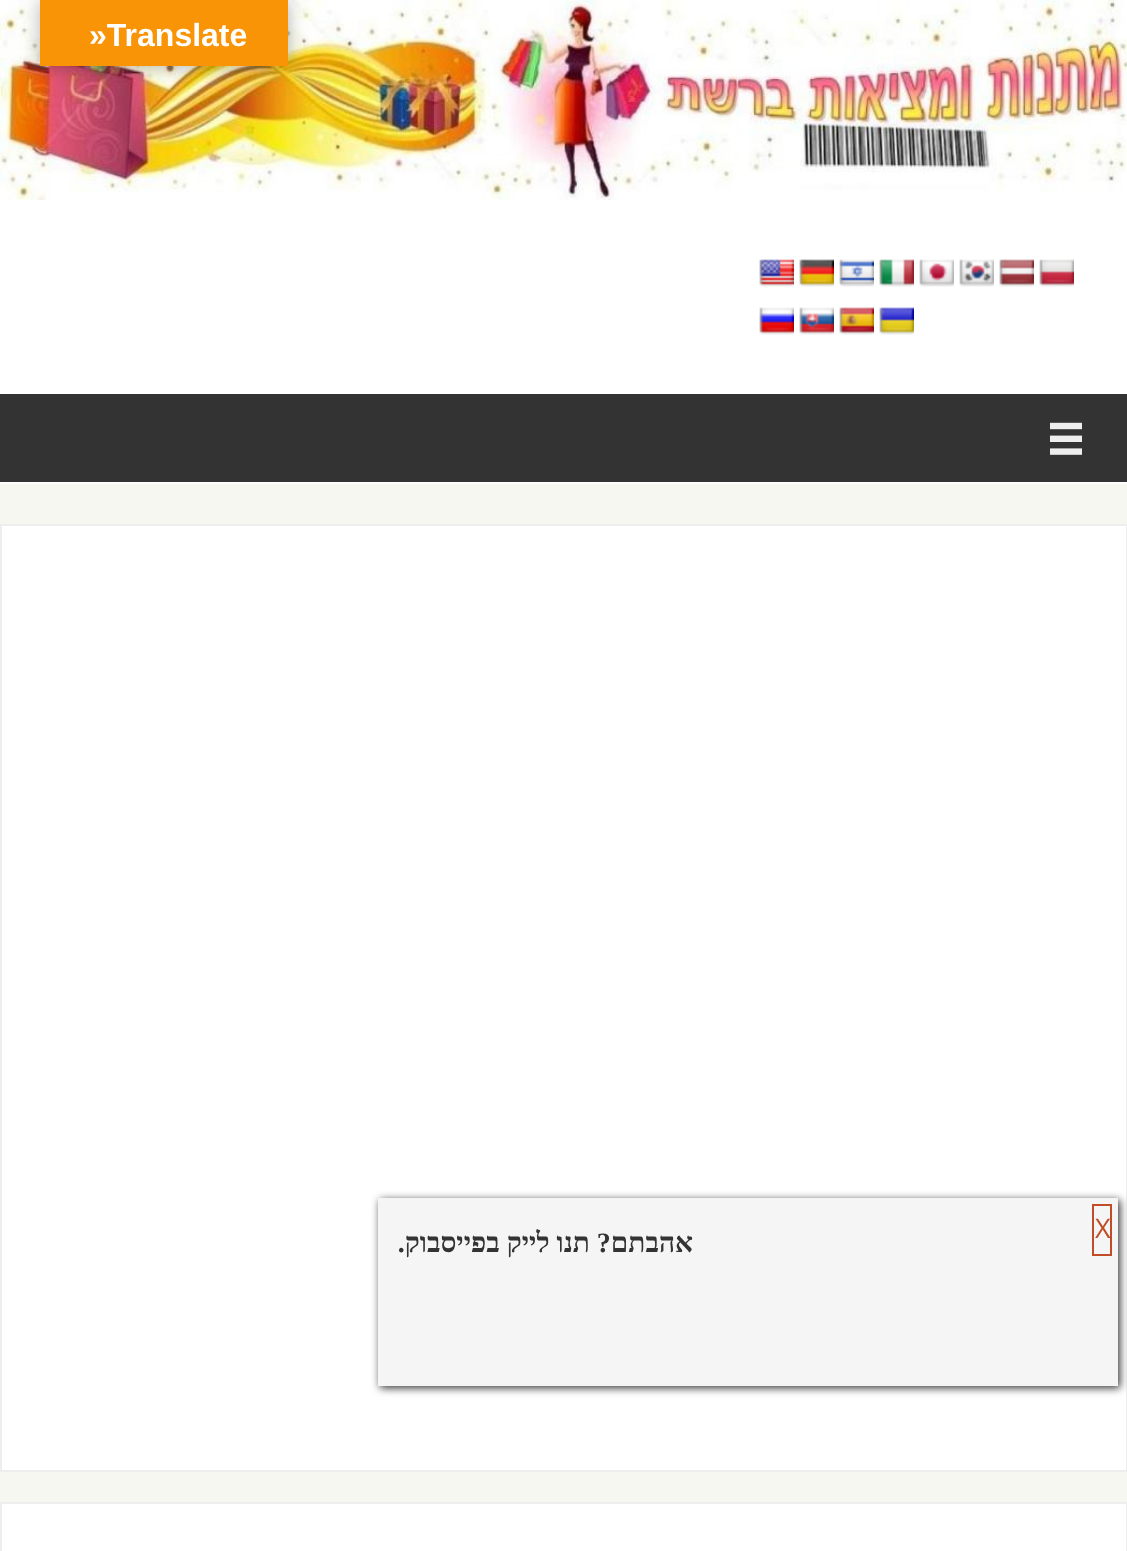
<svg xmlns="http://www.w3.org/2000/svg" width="1127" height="1551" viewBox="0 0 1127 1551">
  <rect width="100%" height="100%" fill="rgb(247,247,242)"/>
  <image x="0" y="0" width="1127" height="200" href="pic1.png"/>
  <rect x="40" y="0" width="248" height="66" fill="rgba(0,0,0,0.3)" filter="blur(9px)"/>
  <rect x="40" y="0" width="248" height="66" fill="rgb(248,148,6)"/>
  <text x="89" y="46" font-family="Liberation Sans" font-size="32" font-weight="bold" fill="rgb(255,255,255)">»Translate</text>
  <rect x="0" y="200" width="1127" height="284" fill="rgb(255,255,255)"/>
  <image x="1039" y="259" width="35" height="28" href="pic2.png"/>
  <image x="999" y="259" width="35" height="28" href="pic3.png"/>
  <image x="959" y="259" width="35" height="28" href="pic4.png"/>
  <image x="919" y="259" width="35" height="28" href="pic5.png"/>
  <image x="879" y="259" width="35" height="28" href="pic6.png"/>
  <image x="839" y="259" width="35" height="28" href="pic7.png"/>
  <image x="799" y="259" width="35" height="28" href="pic8.png"/>
  <image x="759" y="259" width="35" height="28" href="pic9.png"/>
  <image x="879" y="307" width="35" height="28" href="pic10.png"/>
  <image x="839" y="307" width="35" height="28" href="pic11.png"/>
  <image x="799" y="307" width="35" height="28" href="pic12.png"/>
  <image x="759" y="307" width="35" height="28" href="pic13.png"/>
  <rect x="0" y="394" width="1127" height="88" fill="rgb(51,51,51)"/>
  <image x="1050" y="422" width="32" height="33" href="pic14.png"/>
  <rect x="1" y="525" width="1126" height="946" fill="rgb(255,255,255)" stroke="rgb(238,238,238)" stroke-width="2"/>
  <rect x="1" y="1503" width="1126" height="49" fill="rgb(255,255,255)" stroke="rgb(238,238,238)" stroke-width="2"/>
  <rect x="380" y="1200" width="740" height="188" fill="rgb(51,51,51)" filter="blur(4px)"/>
  <rect x="378" y="1198" width="740" height="188" fill="rgb(245,245,245)"/>
  <rect x="1093" y="1205" width="18" height="50" fill="none" stroke="rgb(191,77,40)" stroke-width="2"/>
  <text x="1095" y="1238" font-family="Open Sans" font-size="27" fill="rgb(191,77,40)">X</text>
  <text x="693" y="1252" font-family="Liberation Serif" font-size="28" font-weight="bold" direction="rtl" fill="rgb(51,51,51)">אהבתם? תנו לייק בפייסבוק.</text>
</svg>
